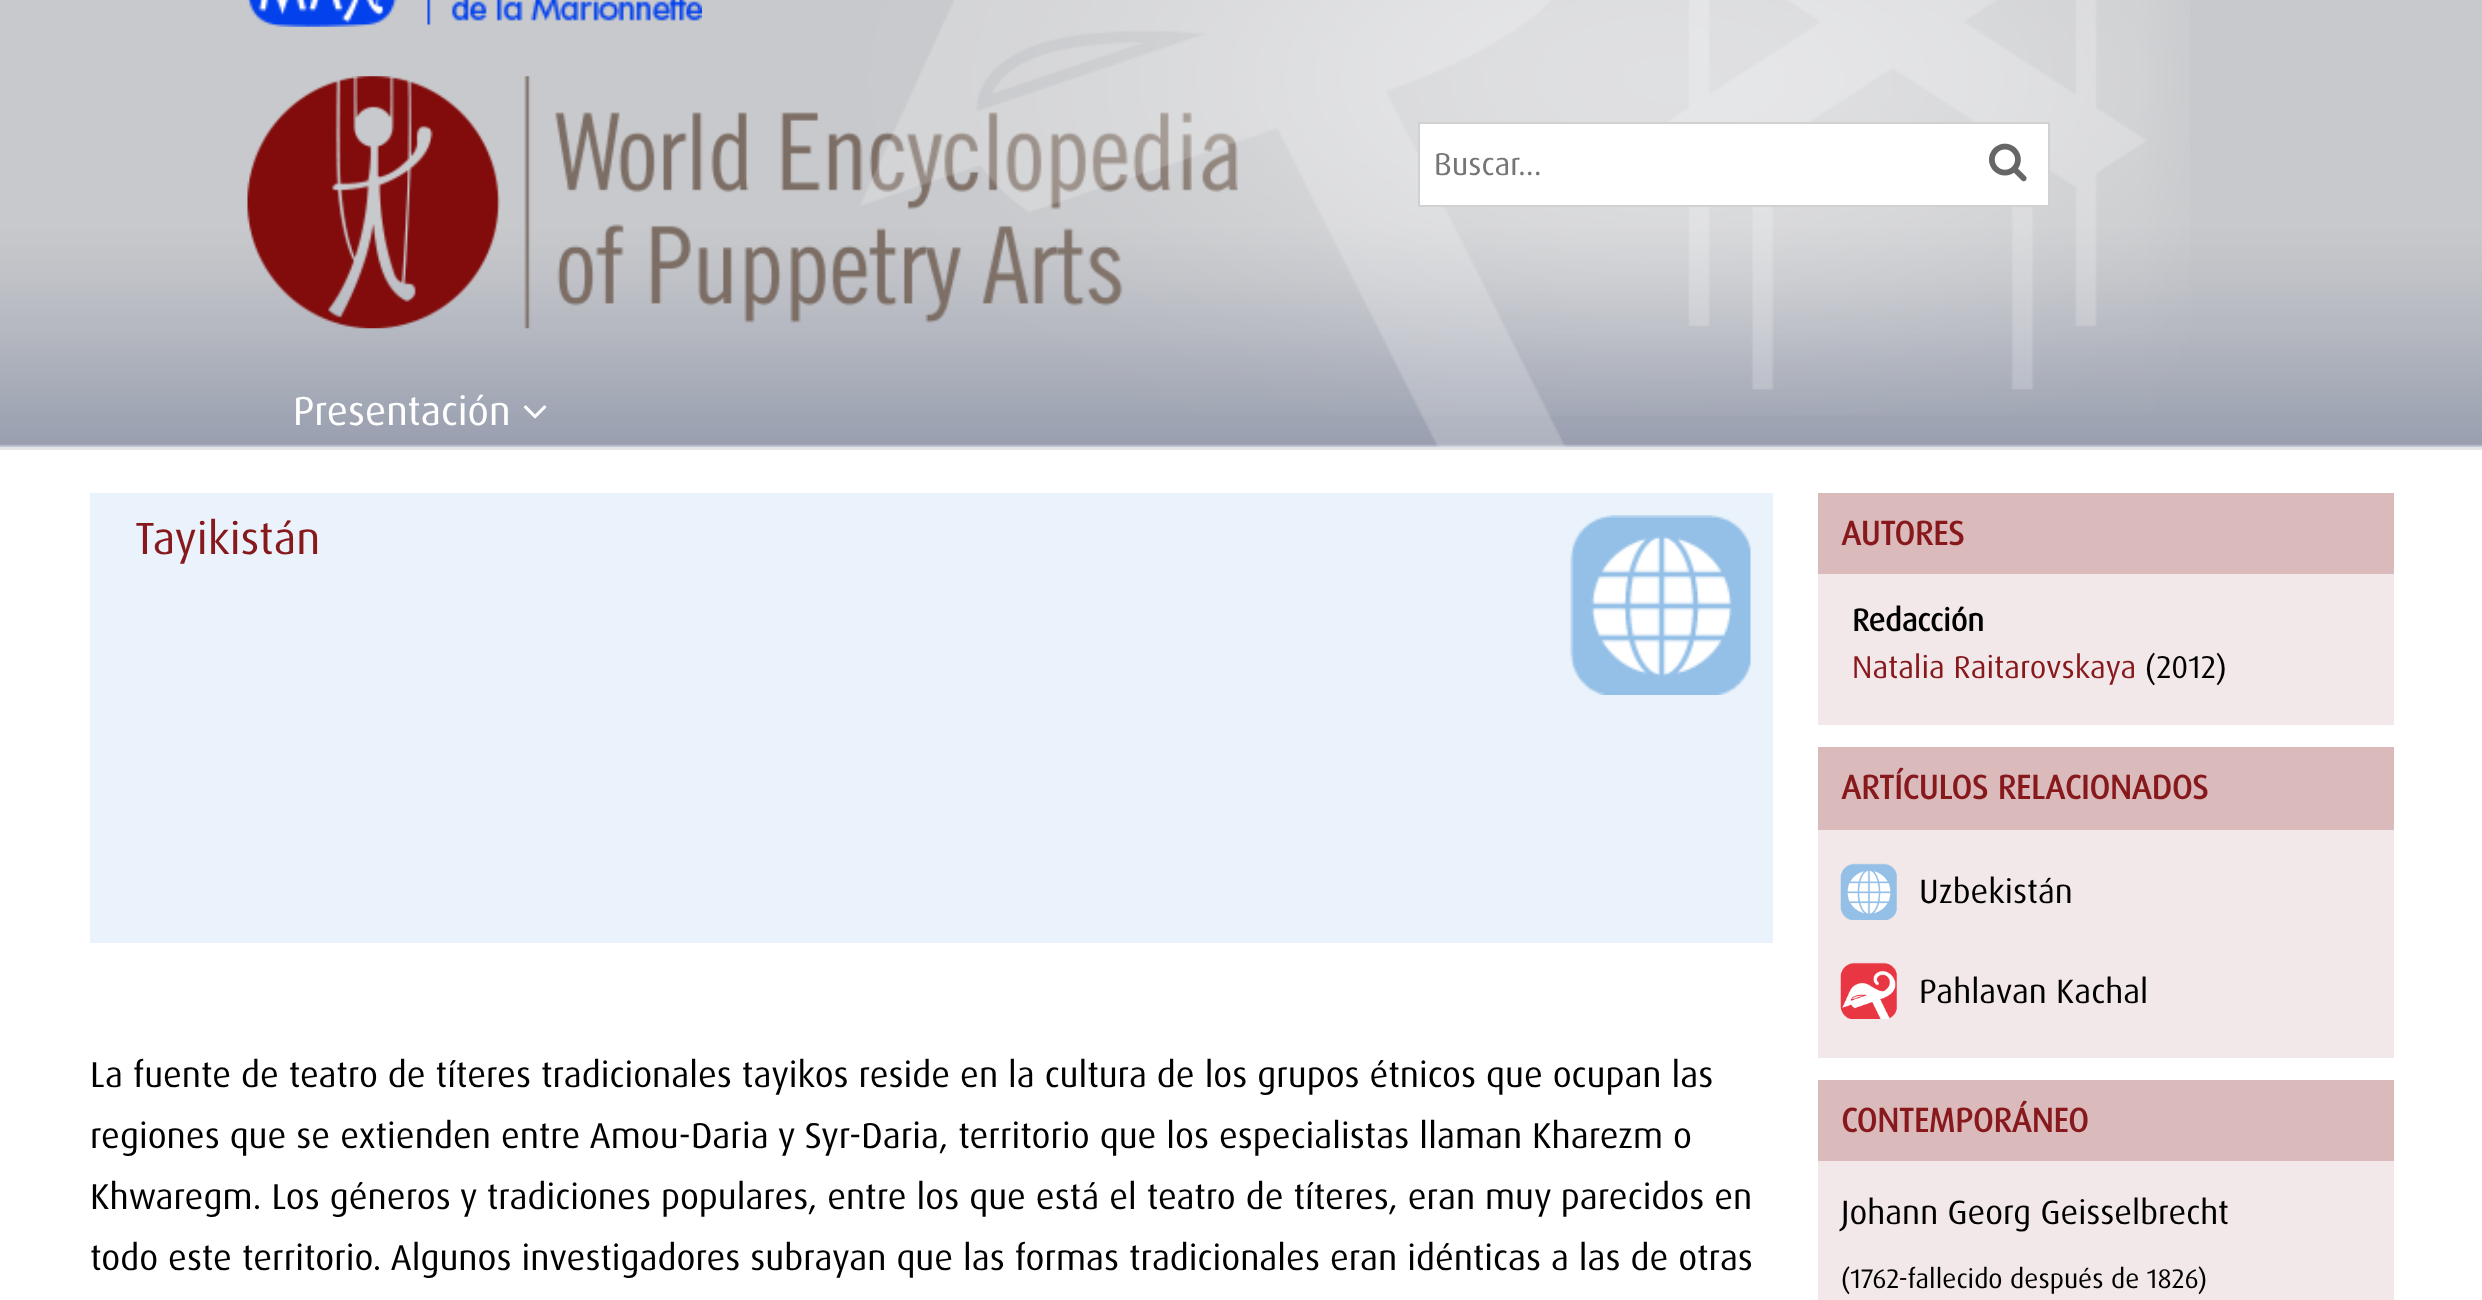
<svg xmlns="http://www.w3.org/2000/svg" width="2482" height="1300" viewBox="0 0 2482 1300">
  <rect width="100%" height="100%" fill="rgb(255,255,255)"/>
  <rect x="0" y="448" width="2482" height="2" fill="rgb(230,230,230)"/>
  <image x="0" y="0" width="2482" height="448" href="pic1.png"/>
  <image x="247" y="0" width="455" height="27" href="pic2.png"/>
  <image x="247" y="76" width="991" height="253" href="pic4.png"/>
  <image x="860" y="0" width="1330" height="447" href="pic3.png"/>
  <rect x="1419" y="123" width="630" height="83" fill="rgb(255,255,255)" stroke="rgb(209,209,209)" stroke-width="2"/>
  <text x="1434" y="175" font-family="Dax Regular" font-size="31.5" fill="rgb(117,117,117)">Buscar...</text>
  <image x="1989" y="143" width="38" height="39" href="pic5.png"/>
  <text x="293" y="425" font-family="Dax Regular" font-size="40.5" fill="rgb(255,255,255)">Presentación</text>
  <image x="523" y="405" width="24" height="14" href="pic6.png"/>
  <rect x="90" y="493" width="1683" height="450" fill="rgb(234,243,251)"/>
  <text x="135" y="554" font-family="Dax Regular" font-size="45" fill="rgb(135,25,29)">Tayikistán</text>
  <image x="1570" y="515" width="181" height="180" href="pic7.png"/>
  <rect x="1818" y="493" width="576" height="81" fill="rgb(219,186,187)"/>
  <text x="1841" y="545" font-family="Dax Regular" font-size="33.75" font-weight="bold" fill="rgb(135,25,29)">AUTORES</text>
  <rect x="1818" y="574" width="576" height="151" fill="rgb(243,232,233)"/>
  <text x="1852" y="631" font-family="Dax Regular" font-size="31.5" font-weight="bold" fill="rgb(0,0,0)">Redacción</text>
  <text x="1852" y="678" font-family="Dax Regular" font-size="31.5" fill="rgb(135,25,29)">Natalia Raitarovskaya</text>
  <text x="2145" y="678" font-family="Dax Regular" font-size="31.5" fill="rgb(0,0,0)">(2012)</text>
  <rect x="1818" y="747" width="576" height="83" fill="rgb(219,186,187)"/>
  <text x="1841" y="799" font-family="Dax Regular" font-size="33.75" font-weight="bold" fill="rgb(135,25,29)">ARTÍCULOS RELACIONADOS</text>
  <rect x="1818" y="830" width="576" height="228" fill="rgb(243,232,233)"/>
  <image x="1840" y="863" width="57" height="57" href="pic8.png"/>
  <text x="1919" y="903" font-family="Dax Regular" font-size="33.75" fill="rgb(0,0,0)">Uzbekistán</text>
  <image x="1840" y="962" width="57" height="57" href="pic9.png"/>
  <text x="1919" y="1003" font-family="Dax Regular" font-size="33.75" fill="rgb(0,0,0)">Pahlavan Kachal</text>
  <rect x="1818" y="1080" width="576" height="81" fill="rgb(219,186,187)"/>
  <text x="1841" y="1132" font-family="Dax Regular" font-size="33.75" font-weight="bold" fill="rgb(135,25,29)">CONTEMPORÁNEO</text>
  <rect x="1818" y="1161" width="576" height="139" fill="rgb(243,232,233)"/>
  <text x="1841" y="1224" font-family="Dax Regular" font-size="33.75" fill="rgb(0,0,0)">Johann Georg Geisselbrecht</text>
  <text x="1841" y="1288" font-family="Dax Regular" font-size="27" fill="rgb(0,0,0)">(1762-fallecido después de 1826)</text>
  <g font-family="Dax Regular" font-size="36" fill="rgb(0,0,0)">
    <text>
      <tspan x="90" y="1087">La fuente de teatro de títeres tradicionales tayikos reside en la cultura de los grupos étnicos que ocupan las</tspan>
      <tspan x="90" y="1148">regiones que se extienden entre Amou-Daria y Syr-Daria, territorio que los especialistas llaman Kharezm o</tspan>
      <tspan x="90" y="1209">Khwaregm. Los géneros y tradiciones populares, entre los que está el teatro de títeres, eran muy parecidos en</tspan>
      <tspan x="90" y="1270">todo este territorio. Algunos investigadores subrayan que las formas tradicionales eran idénticas a las de otras</tspan>
    </text>
  </g>
</svg>
